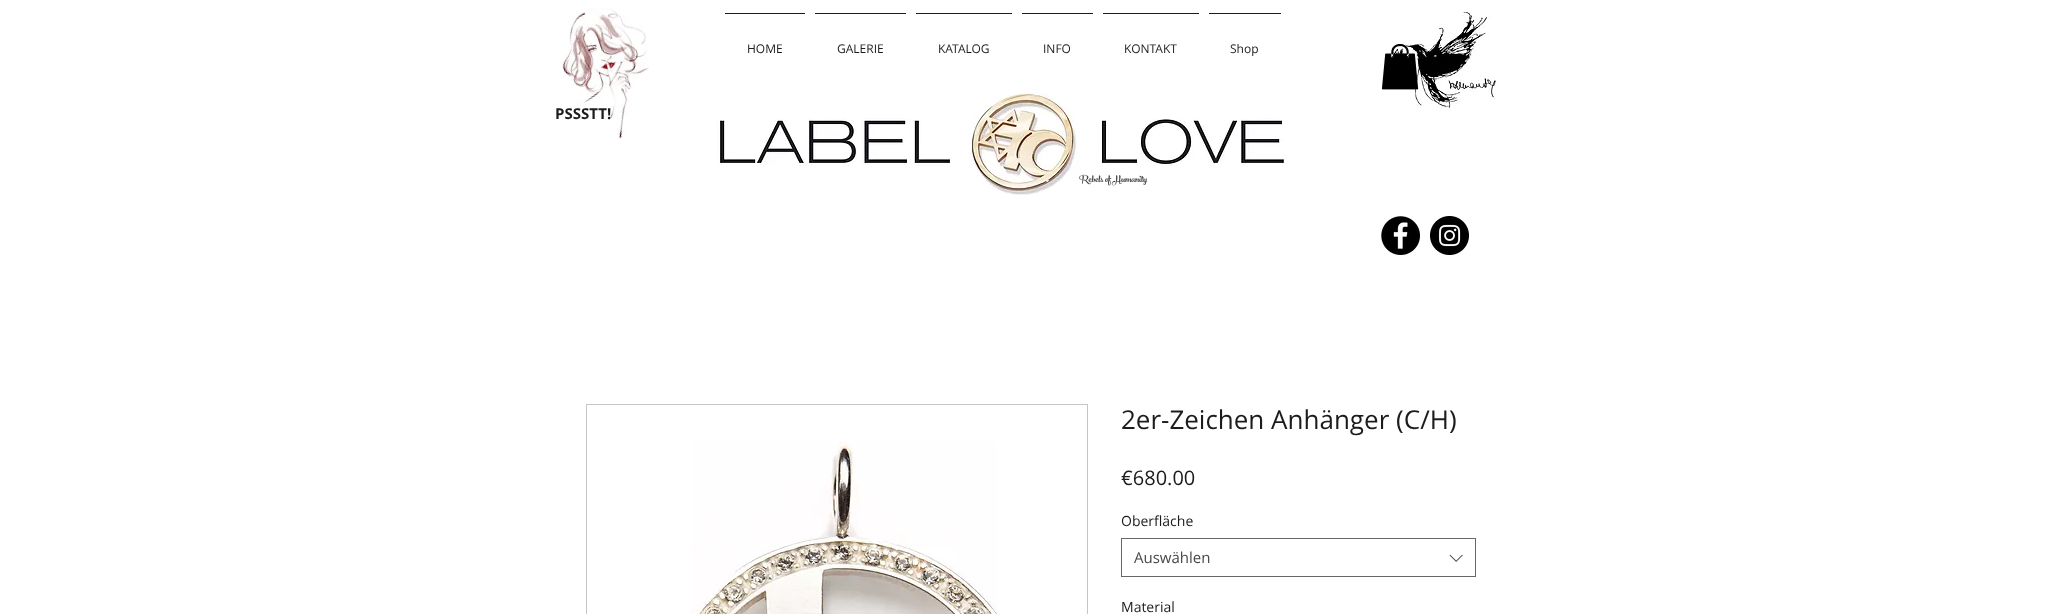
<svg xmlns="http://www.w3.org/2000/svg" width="2061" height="614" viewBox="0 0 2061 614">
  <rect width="100%" height="100%" fill="rgb(255,255,255)"/>
  <image x="560" y="8" width="89" height="131" href="pic1.png"/>
  <rect x="725" y="13" width="80" height="1" fill="rgb(28,28,28)"/>
  <text x="747" y="53" font-family="Open Sans" font-size="12" fill="rgb(28,28,28)">HOME</text>
  <rect x="815" y="13" width="91" height="1" fill="rgb(28,28,28)"/>
  <text x="837" y="53" font-family="Open Sans" font-size="12" fill="rgb(28,28,28)">GALERIE</text>
  <rect x="916" y="13" width="96" height="1" fill="rgb(28,28,28)"/>
  <text x="938" y="53" font-family="Open Sans" font-size="12" fill="rgb(28,28,28)">KATALOG</text>
  <rect x="1022" y="13" width="71" height="1" fill="rgb(28,28,28)"/>
  <text x="1043" y="53" font-family="Open Sans" font-size="12" fill="rgb(28,28,28)">INFO</text>
  <rect x="1103" y="13" width="96" height="1" fill="rgb(28,28,28)"/>
  <text x="1124" y="53" font-family="Open Sans" font-size="12" fill="rgb(28,28,28)">KONTAKT</text>
  <rect x="1209" y="13" width="72" height="1" fill="rgb(28,28,28)"/>
  <text x="1230" y="53" font-family="Open Sans" font-size="12" fill="rgb(28,28,28)">Shop</text>
  <image x="1389" y="12" width="108" height="96" href="pic2.png"/>
  <image x="1381" y="44" width="38" height="46" href="pic3.png"/>
  <text x="555" y="119" font-family="Open Sans" font-size="15" font-weight="bold" fill="rgb(28,28,28)">PSSSTT!</text>
  <image x="717" y="92" width="568" height="103" href="pic4.png"/>
  <text x="1079" y="182" font-family="'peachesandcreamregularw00'" font-size="14" fill="rgb(71,71,71)">Rebels of Humanity</text>
  <image x="1381" y="216" width="39" height="39" href="pic5.png"/>
  <image x="1430" y="216" width="39" height="39" href="pic6.png"/>
  <rect x="586.5" y="404.5" width="501" height="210" fill="none" stroke="rgb(198,198,198)"/>
  <image x="691" y="441" width="307" height="173" href="pic7.png"/>
  <text x="1121" y="429" font-family="Open Sans" font-size="26" fill="rgb(28,28,28)">2er-Zeichen Anhänger (C/H)</text>
  <text x="1121" y="485" font-family="Open Sans" font-size="20" fill="rgb(28,28,28)">€680.00</text>
  <text x="1121" y="526" font-family="Open Sans" font-size="14" fill="rgb(28,28,28)">Oberfläche</text>
  <rect x="1121.5" y="538.5" width="354" height="38" fill="none" stroke="rgb(102,102,102)"/>
  <text x="1134" y="563" font-family="Open Sans" font-size="15" fill="rgb(71,71,71)">Auswählen</text>
  <image x="1449" y="554" width="14" height="8" href="pic8.png"/>
  <text x="1121" y="612" font-family="Open Sans" font-size="14" fill="rgb(28,28,28)">Material</text>
</svg>
